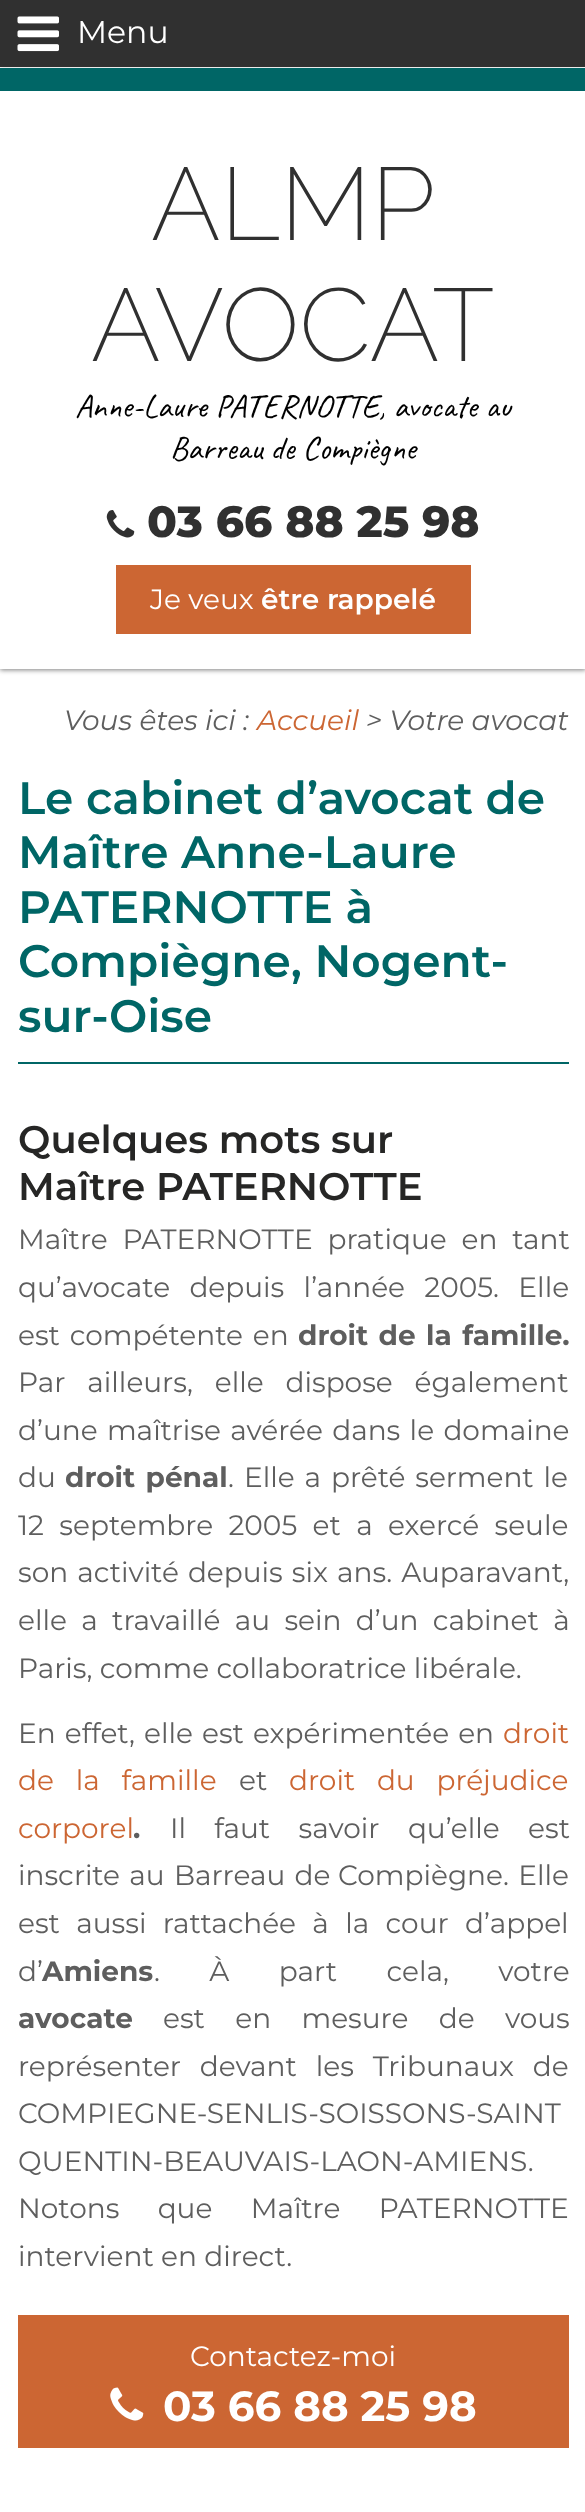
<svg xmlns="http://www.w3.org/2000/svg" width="585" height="2512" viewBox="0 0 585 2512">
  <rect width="100%" height="100%" fill="rgb(255,255,255)"/>
  <rect x="0" y="70" width="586" height="600" fill="rgba(0,0,0,0.5)" filter="blur(2.5px)"/>
  <rect x="0" y="0" width="585" height="67" fill="rgb(48,48,48)"/>
  <image x="17" y="16" width="42" height="36" href="pic1.png"/>
  <text x="77" y="43" font-family="Montserrat" font-size="31.5" fill="rgb(255,255,255)">Menu</text>
  <rect x="0" y="91" width="585" height="578" fill="rgb(255,255,255)"/>
  <rect x="0" y="68" width="585" height="23" fill="rgb(0,102,102)"/>
  <g font-family="Raleway" font-size="103" font-weight="200" fill="rgb(48,48,48)">
    <text x="151" y="240">ALMP</text>
    <text x="91" y="361">AVOCAT</text>
  </g>
  <g font-family="Caveat" font-size="33.25" fill="rgb(0,0,0)">
    <text x="75" y="417">Anne-Laure PATERNOTTE, avocate au</text>
    <text x="170" y="459">Barreau de Compiègne</text>
  </g>
  <image x="106" y="510" width="29" height="28" href="pic2.png"/>
  <text x="147" y="537" font-family="Montserrat" font-size="43.75" font-weight="800" fill="rgb(48,48,48)">03 66 88 25 98</text>
  <rect x="116" y="565" width="355" height="69" fill="rgb(204,102,51)"/>
  <text x="150" y="609" font-family="Montserrat" font-size="28" fill="rgb(255,255,255)">Je veux</text>
  <text x="261" y="609" font-family="Montserrat" font-size="28" font-weight="600" fill="rgb(255,255,255)">être rappelé</text>
  <text x="64" y="730" font-family="Montserrat" font-size="28" font-style="italic" fill="rgb(94,94,94)">Vous êtes ici :</text>
  <text x="257" y="730" font-family="Montserrat" font-size="28" font-style="italic" fill="rgb(204,102,51)">Accueil</text>
  <text x="366" y="730" font-family="Montserrat" font-size="28" font-style="italic" fill="rgb(94,94,94)">&gt; Votre avocat</text>
  <rect x="18" y="1062" width="551" height="2" fill="rgb(0,102,102)"/>
  <g font-family="Montserrat" font-size="45.5" font-weight="600" fill="rgb(0,102,102)">
    <text>
      <tspan x="18" y="814">Le cabinet d’avocat de</tspan>
      <tspan x="18" y="868">Maître Anne-Laure</tspan>
      <tspan x="18" y="923">PATERNOTTE à</tspan>
      <tspan x="18" y="977">Compiègne, Nogent-</tspan>
      <tspan x="18" y="1032">sur-Oise</tspan>
    </text>
  </g>
  <g font-family="Montserrat" font-size="38.5" font-weight="600" fill="rgb(38,38,37)">
    <text>
      <tspan x="18" y="1153">Quelques mots sur</tspan>
      <tspan x="18" y="1200">Maître PATERNOTTE</tspan>
    </text>
  </g>
  <g font-family="Montserrat" font-size="28" fill="rgb(94,94,94)">
    <text>
      <tspan x="18" y="1249" word-spacing="7.5">Maître PATERNOTTE pratique en tant</tspan>
      <tspan x="18" y="1297" word-spacing="12">qu’avocate depuis l’année 2005. Elle</tspan>
      <tspan x="18" y="1345" word-spacing="2.5">est compétente en</tspan>
    </text>
  </g>
  <text x="298" y="1345" word-spacing="2.5" font-family="Montserrat" font-size="28" font-weight="bold" fill="rgb(94,94,94)">droit de la famille.</text>
  <g font-family="Montserrat" font-size="28" fill="rgb(94,94,94)">
    <text>
      <tspan x="18" y="1392" word-spacing="14.5">Par ailleurs, elle dispose également</tspan>
      <tspan x="18" y="1440" word-spacing="2">d’une maîtrise avérée dans le domaine</tspan>
      <tspan x="18" y="1487">du</tspan>
    </text>
  </g>
  <text x="65" y="1487" word-spacing="2.5" font-family="Montserrat" font-size="28" font-weight="bold" fill="rgb(94,94,94)">droit pénal</text>
  <g font-family="Montserrat" font-size="28" fill="rgb(94,94,94)">
    <text x="228" y="1487">.</text>
    <text x="244" y="1487" word-spacing="2.5">Elle a prêté serment le</text>
    <text>
      <tspan x="18" y="1535" word-spacing="8">12 septembre 2005 et a exercé seule</tspan>
      <tspan x="18" y="1582" word-spacing="1.75">son activité depuis six ans. Auparavant,</tspan>
      <tspan x="18" y="1630" word-spacing="7">elle a travaillé au sein d’un cabinet à</tspan>
      <tspan x="18" y="1678">Paris, comme collaboratrice libérale.</tspan>
    </text>
    <text x="18" y="1743" word-spacing="1.75">En effet, elle est expérimentée en</text>
  </g>
  <g font-family="Montserrat" font-size="28" fill="rgb(204,102,51)">
    <text x="503" y="1743">droit</text>
    <text x="18" y="1790" word-spacing="14.5">de la famille</text>
  </g>
  <text x="239" y="1790" font-family="Montserrat" font-size="28" fill="rgb(94,94,94)">et</text>
  <g font-family="Montserrat" font-size="28" fill="rgb(204,102,51)">
    <text x="289" y="1790" word-spacing="14.5">droit du préjudice</text>
    <text x="18" y="1838">corporel</text>
  </g>
  <text x="133" y="1838" font-family="Montserrat" font-size="28" font-weight="bold" fill="rgb(94,94,94)">.</text>
  <g font-family="Montserrat" font-size="28" fill="rgb(94,94,94)">
    <text x="170" y="1838" word-spacing="21">Il faut savoir qu’elle est</text>
    <text x="18" y="1885" word-spacing="2">inscrite au Barreau de</text>
    <text x="338" y="1885" word-spacing="2">Compiègne. Elle</text>
    <text>
      <tspan x="18" y="1933" word-spacing="9">est aussi rattachée à la cour d’appel</tspan>
      <tspan x="18" y="1981">d’</tspan>
    </text>
  </g>
  <text x="42" y="1981" font-family="Montserrat" font-size="28" font-weight="bold" fill="rgb(94,94,94)">Amiens</text>
  <text x="154" y="1981" word-spacing="42" font-family="Montserrat" font-size="28" fill="rgb(94,94,94)">. À part cela, votre</text>
  <text x="18" y="2028" font-family="Montserrat" font-size="28" font-weight="bold" fill="rgb(94,94,94)">avocate</text>
  <g font-family="Montserrat" font-size="28" fill="rgb(94,94,94)">
    <text x="163" y="2028" word-spacing="23">est en mesure de vous</text>
    <text>
      <tspan x="18" y="2076" word-spacing="11.5">représenter devant les Tribunaux de</tspan>
      <tspan x="18" y="2123">COMPIEGNE-SENLIS-SOISSONS-SAINT</tspan>
      <tspan x="18" y="2171">QUENTIN-BEAUVAIS-LAON-AMIENS.</tspan>
      <tspan x="18" y="2218" word-spacing="31">Notons que Maître PATERNOTTE</tspan>
      <tspan x="18" y="2266">intervient en direct.</tspan>
    </text>
  </g>
  <rect x="18" y="2315" width="551" height="133" fill="rgb(204,102,51)"/>
  <text x="190" y="2366" font-family="Montserrat" font-size="28" fill="rgb(255,255,255)">Contactez-moi</text>
  <image x="110" y="2387" width="34" height="34" href="pic3.png"/>
  <text x="163" y="2421" font-family="Montserrat" font-size="42" font-weight="bold" fill="rgb(255,255,255)">03 66 88 25 98</text>
</svg>
